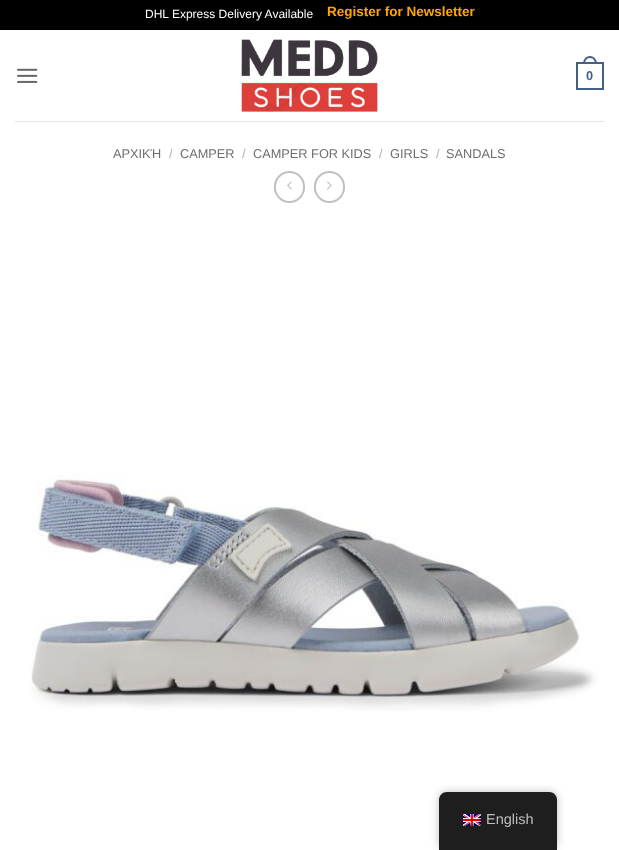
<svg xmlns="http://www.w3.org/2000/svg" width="619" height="850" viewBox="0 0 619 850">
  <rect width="100%" height="100%" fill="rgb(255,255,255)"/>
  <rect x="0" y="0" width="619" height="30" fill="rgb(0,0,0)"/>
  <text x="145" y="18" font-family="Liberation Sans" font-size="12" fill="rgb(255,255,255)">DHL Express Delivery Available</text>
  <text x="327" y="16" font-family="Liberation Sans" font-size="13.5" font-weight="bold" fill="rgb(255,165,0)">Register for Newsletter</text>
  <image x="17" y="68" width="21" height="15" href="pic1.png"/>
  <image x="241" y="39" width="137" height="73" href="pic2.png"/>
  <rect x="577" y="63" width="26" height="26" fill="none" stroke="rgb(68,96,132)" stroke-width="2"/>
  <path d="M590 56C594.5 56 597 60 597 64H583C583 60 585.5 56 590 56ZM590 58C593.5 58 595 61 595 64H585C585 61 586.5 58 590 58Z" fill="rgb(68,96,132)" fill-rule="evenodd"/>
  <text x="586" y="80" font-family="Liberation Sans" font-size="12.75" font-weight="bold" fill="rgb(68,96,132)">0</text>
  <rect x="15" y="121" width="589" height="1" fill="rgb(230,230,230)"/>
  <text x="113" y="158" font-family="Liberation Sans" font-size="12.75" fill="rgb(110,110,110)">ΑΡΧΙΚΉ</text>
  <text x="169" y="158" font-family="Liberation Sans" font-size="12.75" fill="rgb(178,178,178)">/</text>
  <text x="180" y="158" font-family="Liberation Sans" font-size="12.75" fill="rgb(110,110,110)">CAMPER</text>
  <text x="242" y="158" font-family="Liberation Sans" font-size="12.75" fill="rgb(178,178,178)">/</text>
  <text x="253" y="158" font-family="Liberation Sans" font-size="12.75" fill="rgb(110,110,110)">CAMPER FOR KIDS</text>
  <text x="379" y="158" font-family="Liberation Sans" font-size="12.75" fill="rgb(178,178,178)">/</text>
  <text x="390" y="158" font-family="Liberation Sans" font-size="12.75" fill="rgb(110,110,110)">GIRLS</text>
  <text x="436" y="158" font-family="Liberation Sans" font-size="12.75" fill="rgb(178,178,178)">/</text>
  <text x="446" y="158" font-family="Liberation Sans" font-size="12.75" fill="rgb(110,110,110)">SANDALS</text>
  <rect x="275" y="172" width="29" height="30" rx="14.5" fill="none" stroke="rgb(192,192,192)" stroke-width="2"/>
  <image x="287" y="181" width="5" height="9" href="pic3.png"/>
  <rect x="315" y="172" width="29" height="30" rx="14.5" fill="none" stroke="rgb(192,192,192)" stroke-width="2"/>
  <image x="327" y="181" width="5" height="9" href="pic4.png"/>
  <image x="31" y="474" width="567" height="237" href="pic5.png"/>
  <rect x="439" y="792" width="118" height="58" rx="8" fill="rgba(0,0,0,0.25)" filter="blur(4px)"/>
  <path d="M447 792H549C553.5 792 557 795.5 557 800V850H439V800C439 795.5 442.5 792 447 792Z" fill="rgb(30,30,30)"/>
  <image x="463" y="814" width="18" height="12" href="pic6.png"/>
  <text x="486" y="824" font-family="Liberation Sans" font-size="14.5" fill="rgb(189,189,189)">English</text>
</svg>
